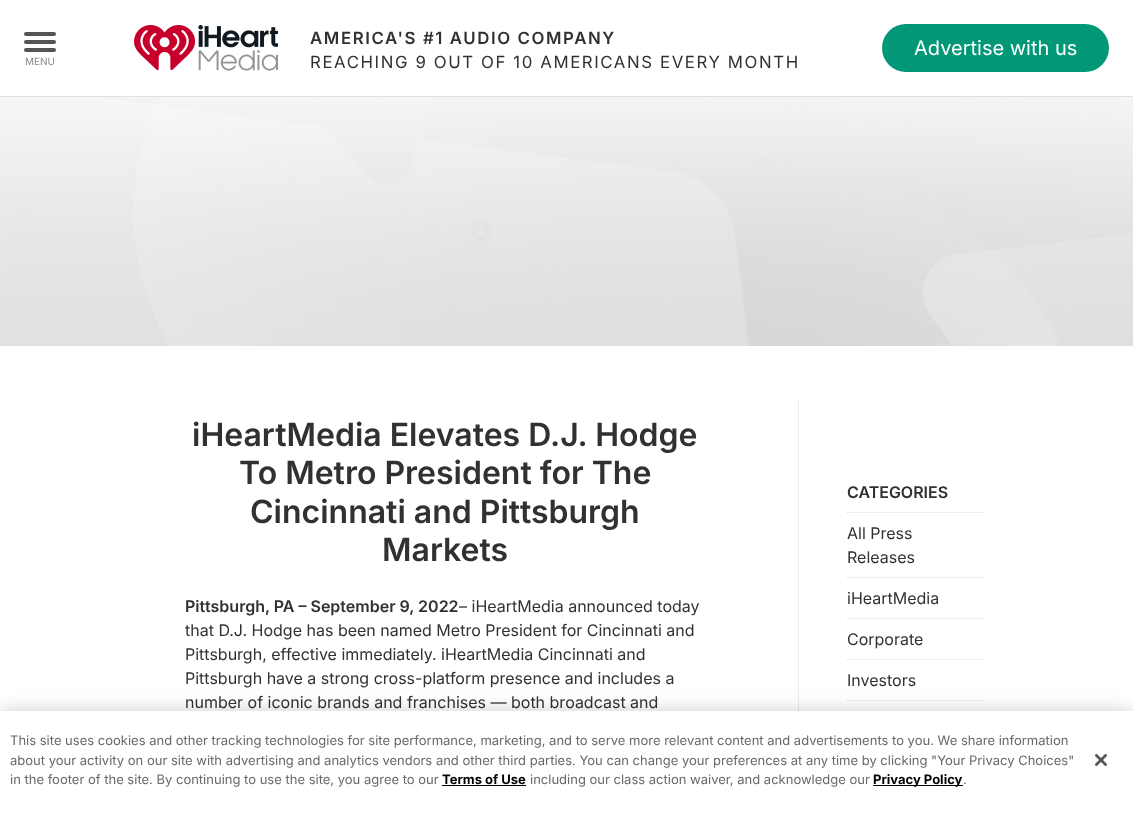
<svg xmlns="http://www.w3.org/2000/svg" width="1133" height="813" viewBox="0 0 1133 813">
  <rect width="100%" height="100%" fill="rgb(255,255,255)"/>
  <rect x="0" y="96" width="1133" height="1" fill="rgb(222,226,230)"/>
  <rect x="24" y="32" width="32" height="4" rx="2" fill="rgb(85,85,85)"/>
  <rect x="24" y="40" width="32" height="4" rx="2" fill="rgb(85,85,85)"/>
  <rect x="24" y="48" width="32" height="4" rx="2" fill="rgb(85,85,85)"/>
  <text x="25" y="65" font-family="Inter" font-size="10" fill="rgb(136,136,136)">MENU</text>
  <image x="134" y="25" width="144" height="46" href="pic1.png"/>
  <text x="310" y="44" font-family="Inter" font-size="16.8" font-weight="600" letter-spacing="1.6" fill="rgb(47,49,51)">AMERICA'S #1 AUDIO COMPANY</text>
  <text x="310" y="68" font-family="Inter" font-size="16.8" letter-spacing="1.6" fill="rgb(47,49,51)">REACHING 9 OUT OF 10 AMERICANS EVERY MONTH</text>
  <rect x="882" y="24" width="227" height="48" rx="24" fill="rgb(1,151,119)"/>
  <text x="914" y="55" font-family="Inter" font-size="20" fill="rgb(255,255,255)">Advertise with us</text>
  <image x="0" y="97" width="1133" height="249" href="pic2.png"/>
  <path d="M798.5 400V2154" fill="none" stroke="rgb(221,221,221)" stroke-dasharray="1 1"/>
  <g font-family="Inter" font-size="32" font-weight="600" fill="rgb(47,49,51)">
    <text x="192" y="446">iHeartMedia Elevates D.J. Hodge</text>
    <text x="239" y="484">To Metro President for The</text>
    <text x="250" y="523">Cincinnati and Pittsburgh</text>
    <text x="382" y="561">Markets</text>
  </g>
  <text x="185" y="612" font-family="Inter" font-size="16" font-weight="600" fill="rgb(47,49,51)">Pittsburgh, PA – September 9, 2022</text>
  <g font-family="Inter" font-size="16" fill="rgb(47,49,51)">
    <text x="459" y="612">– iHeartMedia announced today</text>
    <text>
      <tspan x="185" y="636">that D.J. Hodge has been named Metro President for Cincinnati and</tspan>
      <tspan x="185" y="660">Pittsburgh, effective immediately. iHeartMedia Cincinnati and</tspan>
      <tspan x="185" y="684">Pittsburgh have a strong cross-platform presence and includes a</tspan>
      <tspan x="185" y="708">number of iconic brands and franchises — both broadcast and</tspan>
    </text>
  </g>
  <text x="847" y="498" font-family="Inter" font-size="16" font-weight="600" fill="rgb(47,49,51)">CATEGORIES</text>
  <path d="M847 512.5H984" fill="none" stroke="rgb(221,221,221)" stroke-dasharray="1 1"/>
  <g font-family="Inter" font-size="16" fill="rgb(47,49,51)">
    <text>
      <tspan x="847" y="539">All Press</tspan>
      <tspan x="847" y="563">Releases</tspan>
    </text>
  </g>
  <path d="M847 577.5H984" fill="none" stroke="rgb(221,221,221)" stroke-dasharray="1 1"/>
  <text x="847" y="604" font-family="Inter" font-size="16" fill="rgb(47,49,51)">iHeartMedia</text>
  <path d="M847 618.5H984" fill="none" stroke="rgb(221,221,221)" stroke-dasharray="1 1"/>
  <text x="847" y="645" font-family="Inter" font-size="16" fill="rgb(47,49,51)">Corporate</text>
  <path d="M847 659.5H984" fill="none" stroke="rgb(221,221,221)" stroke-dasharray="1 1"/>
  <text x="847" y="686" font-family="Inter" font-size="16" fill="rgb(47,49,51)">Investors</text>
  <path d="M847 700.5H984" fill="none" stroke="rgb(221,221,221)" stroke-dasharray="1 1"/>
  <rect x="0" y="711" width="1133" height="102" fill="rgba(0,0,0,0.2)" filter="blur(9px)"/>
  <rect x="0" y="711" width="1133" height="102" fill="rgb(255,255,255)"/>
  <g font-family="Inter" font-size="13" fill="rgb(105,105,105)">
    <text>
      <tspan x="10" y="745">This site uses cookies and other tracking technologies for site performance, marketing, and to serve more relevant content and advertisements to you. We share information</tspan>
      <tspan x="10" y="765">about your activity on our site with advertising and analytics vendors and other third parties. You can change your preferences at any time by clicking "Your Privacy Choices"</tspan>
      <tspan x="10" y="784">in the footer of the site. By continuing to use the site, you agree to our</tspan>
    </text>
  </g>
  <text x="442" y="784" font-family="Inter" font-size="13" font-weight="bold" fill="rgb(0,0,0)">Terms of Use</text>
  <rect x="442" y="785" width="84" height="1" fill="rgb(0,0,0)"/>
  <text x="530" y="784" font-family="Inter" font-size="13" fill="rgb(105,105,105)">including our class action waiver, and acknowledge our</text>
  <rect x="873" y="785" width="90" height="1" fill="rgb(0,0,0)"/>
  <text x="873" y="784" font-family="Inter" font-size="13" font-weight="bold" fill="rgb(0,0,0)">Privacy Policy</text>
  <text x="963" y="784" font-family="Inter" font-size="13" fill="rgb(105,105,105)">.</text>
  <image x="1095" y="754" width="12" height="12" href="pic3.png"/>
</svg>
